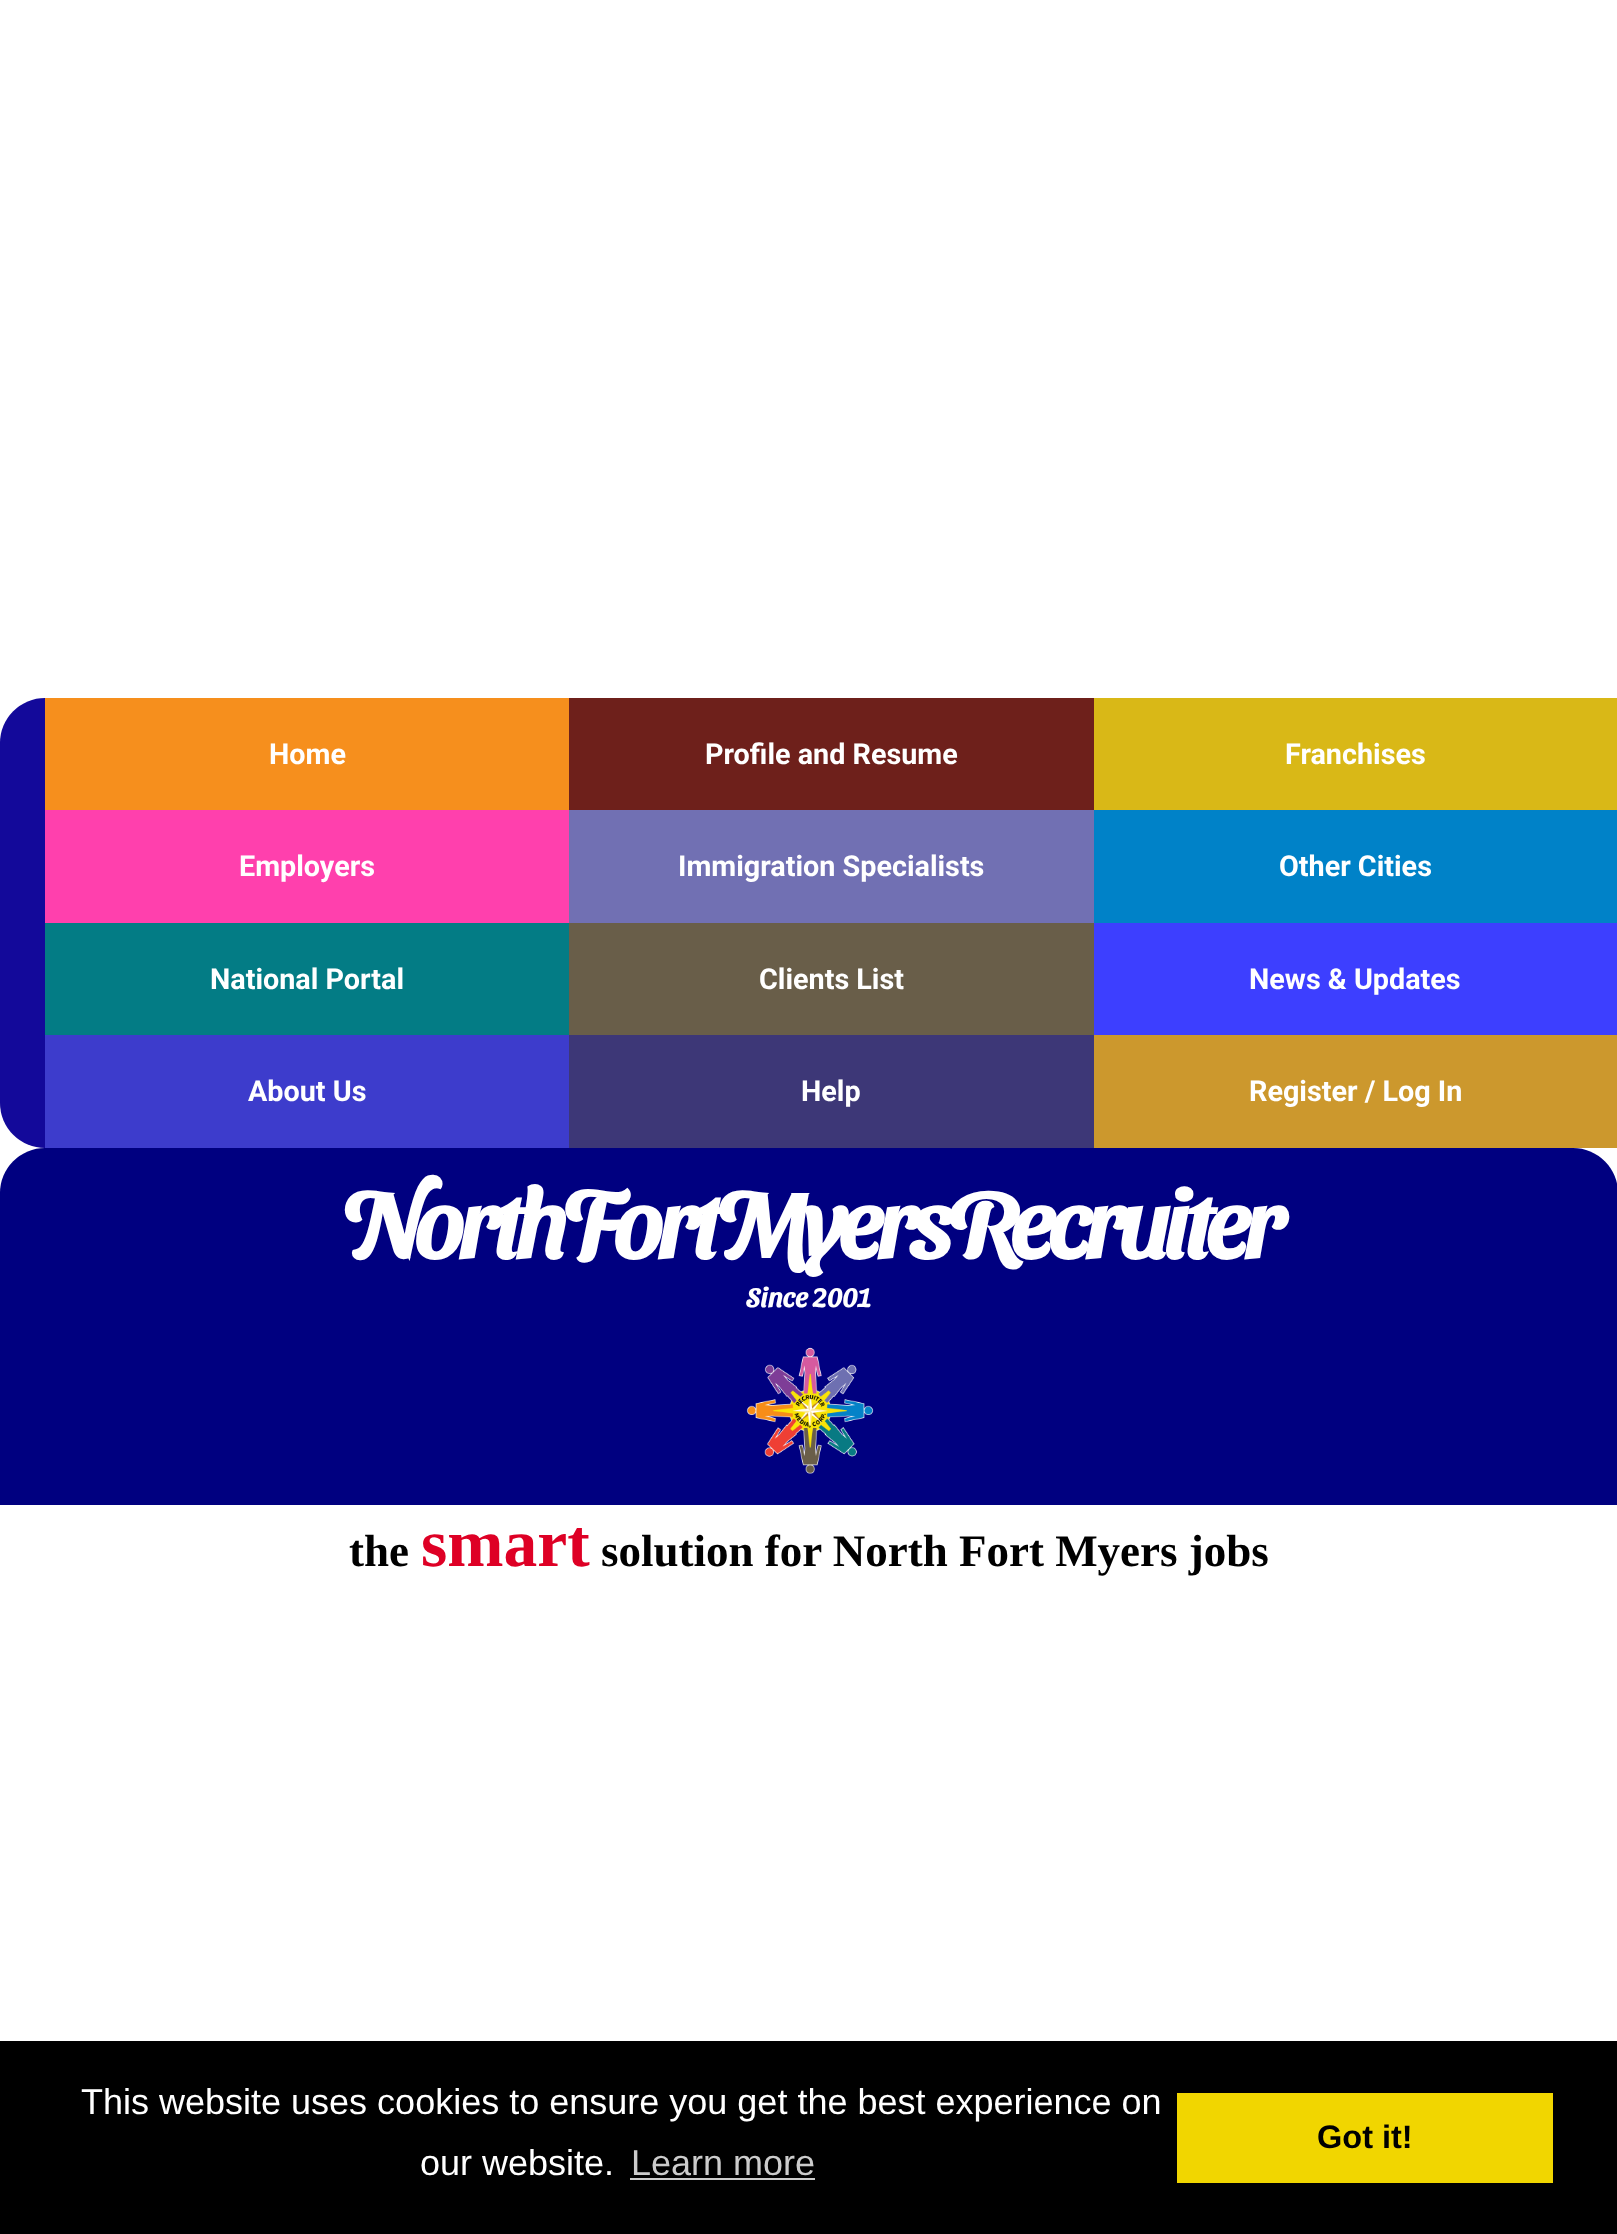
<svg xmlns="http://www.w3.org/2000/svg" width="1617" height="2234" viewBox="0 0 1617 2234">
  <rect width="100%" height="100%" fill="rgb(255,255,255)"/>
  <rect x="0" y="698" width="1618" height="450" rx="45" fill="rgb(19,9,154)"/>
  <rect x="45" y="698" width="524" height="112" fill="rgb(246,143,29)"/>
  <text x="269" y="764" font-family="Roboto" font-size="28.75" font-weight="bold" fill="rgb(255,255,255)">Home</text>
  <rect x="569" y="698" width="525" height="112" fill="rgb(110,32,27)"/>
  <text x="705" y="764" font-family="Roboto" font-size="28.75" font-weight="bold" fill="rgb(255,255,255)">Profile and Resume</text>
  <rect x="1094" y="698" width="523" height="112" fill="rgb(217,184,23)"/>
  <text x="1285" y="764" font-family="Roboto" font-size="28.75" font-weight="bold" fill="rgb(255,255,255)">Franchises</text>
  <rect x="45" y="810" width="524" height="113" fill="rgb(255,64,173)"/>
  <text x="239" y="876" font-family="Roboto" font-size="28.75" font-weight="bold" fill="rgb(255,255,255)">Employers</text>
  <rect x="569" y="810" width="525" height="113" fill="rgb(113,112,179)"/>
  <text x="678" y="876" font-family="Roboto" font-size="28.75" font-weight="bold" fill="rgb(255,255,255)">Immigration Specialists</text>
  <rect x="1094" y="810" width="523" height="113" fill="rgb(0,130,200)"/>
  <text x="1279" y="876" font-family="Roboto" font-size="28.75" font-weight="bold" fill="rgb(255,255,255)">Other Cities</text>
  <rect x="45" y="923" width="524" height="112" fill="rgb(3,124,133)"/>
  <text x="210" y="989" font-family="Roboto" font-size="28.75" font-weight="bold" fill="rgb(255,255,255)">National Portal</text>
  <rect x="569" y="923" width="525" height="112" fill="rgb(105,94,73)"/>
  <text x="759" y="989" font-family="Roboto" font-size="28.75" font-weight="bold" fill="rgb(255,255,255)">Clients List</text>
  <rect x="1094" y="923" width="523" height="112" fill="rgb(61,63,255)"/>
  <text x="1249" y="989" font-family="Roboto" font-size="28.75" font-weight="bold" fill="rgb(255,255,255)">News &amp; Updates</text>
  <rect x="45" y="1035" width="524" height="113" fill="rgb(61,60,204)"/>
  <text x="248" y="1101" font-family="Roboto" font-size="28.75" font-weight="bold" fill="rgb(255,255,255)">About Us</text>
  <rect x="569" y="1035" width="525" height="113" fill="rgb(61,55,119)"/>
  <text x="801" y="1101" font-family="Roboto" font-size="28.75" font-weight="bold" fill="rgb(255,255,255)">Help</text>
  <rect x="1094" y="1035" width="523" height="113" fill="rgb(204,152,45)"/>
  <text x="1249" y="1101" font-family="Roboto" font-size="28.75" font-weight="bold" fill="rgb(255,255,255)">Register / Log In</text>
  <rect x="0" y="1148" width="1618" height="434" rx="45" fill="rgb(0,0,128)"/>
  <text x="340" y="1258" font-family="Sansita Swashed" font-size="94.5" font-weight="bold" letter-spacing="-6.75" fill="rgb(255,255,255)">NorthFortMyersRecruiter</text>
  <text x="746" y="1307" font-family="Sansita Swashed" font-size="27" font-weight="bold" fill="rgb(255,255,255)">Since 2001</text>
  <image x="746" y="1347" width="128" height="127" href="pic1.png"/>
  <rect x="0" y="1505" width="1617" height="77" fill="rgb(255,255,255)"/>
  <text x="349" y="1566" font-family="Liberation Serif" font-size="45" font-weight="bold" fill="rgb(0,0,0)">the</text>
  <text x="421" y="1566" font-family="Liberation Serif" font-size="67.5" font-weight="bold" fill="rgb(222,0,37)">smart</text>
  <text x="601" y="1566" font-family="Liberation Serif" font-size="45" font-weight="bold" fill="rgb(0,0,0)">solution for North Fort Myers jobs</text>
  <rect x="0" y="2041" width="1617" height="193" fill="rgb(0,0,0)"/>
  <g font-family="Liberation Sans" font-size="36" fill="rgb(255,255,255)">
    <text x="81" y="2114">This website uses cookies to ensure you get the best experience on</text>
    <text x="420" y="2175">our website.</text>
  </g>
  <text x="631" y="2175" font-family="Liberation Sans" font-size="36" fill="rgb(204,204,204)">Learn more</text>
  <rect x="630" y="2178" width="185" height="2" fill="rgb(204,204,204)"/>
  <rect x="1177" y="2093" width="376" height="90" fill="rgb(241,214,0)"/>
  <text x="1317" y="2148" font-family="Liberation Sans" font-size="32.5" font-weight="bold" fill="rgb(0,0,0)">Got it!</text>
</svg>
